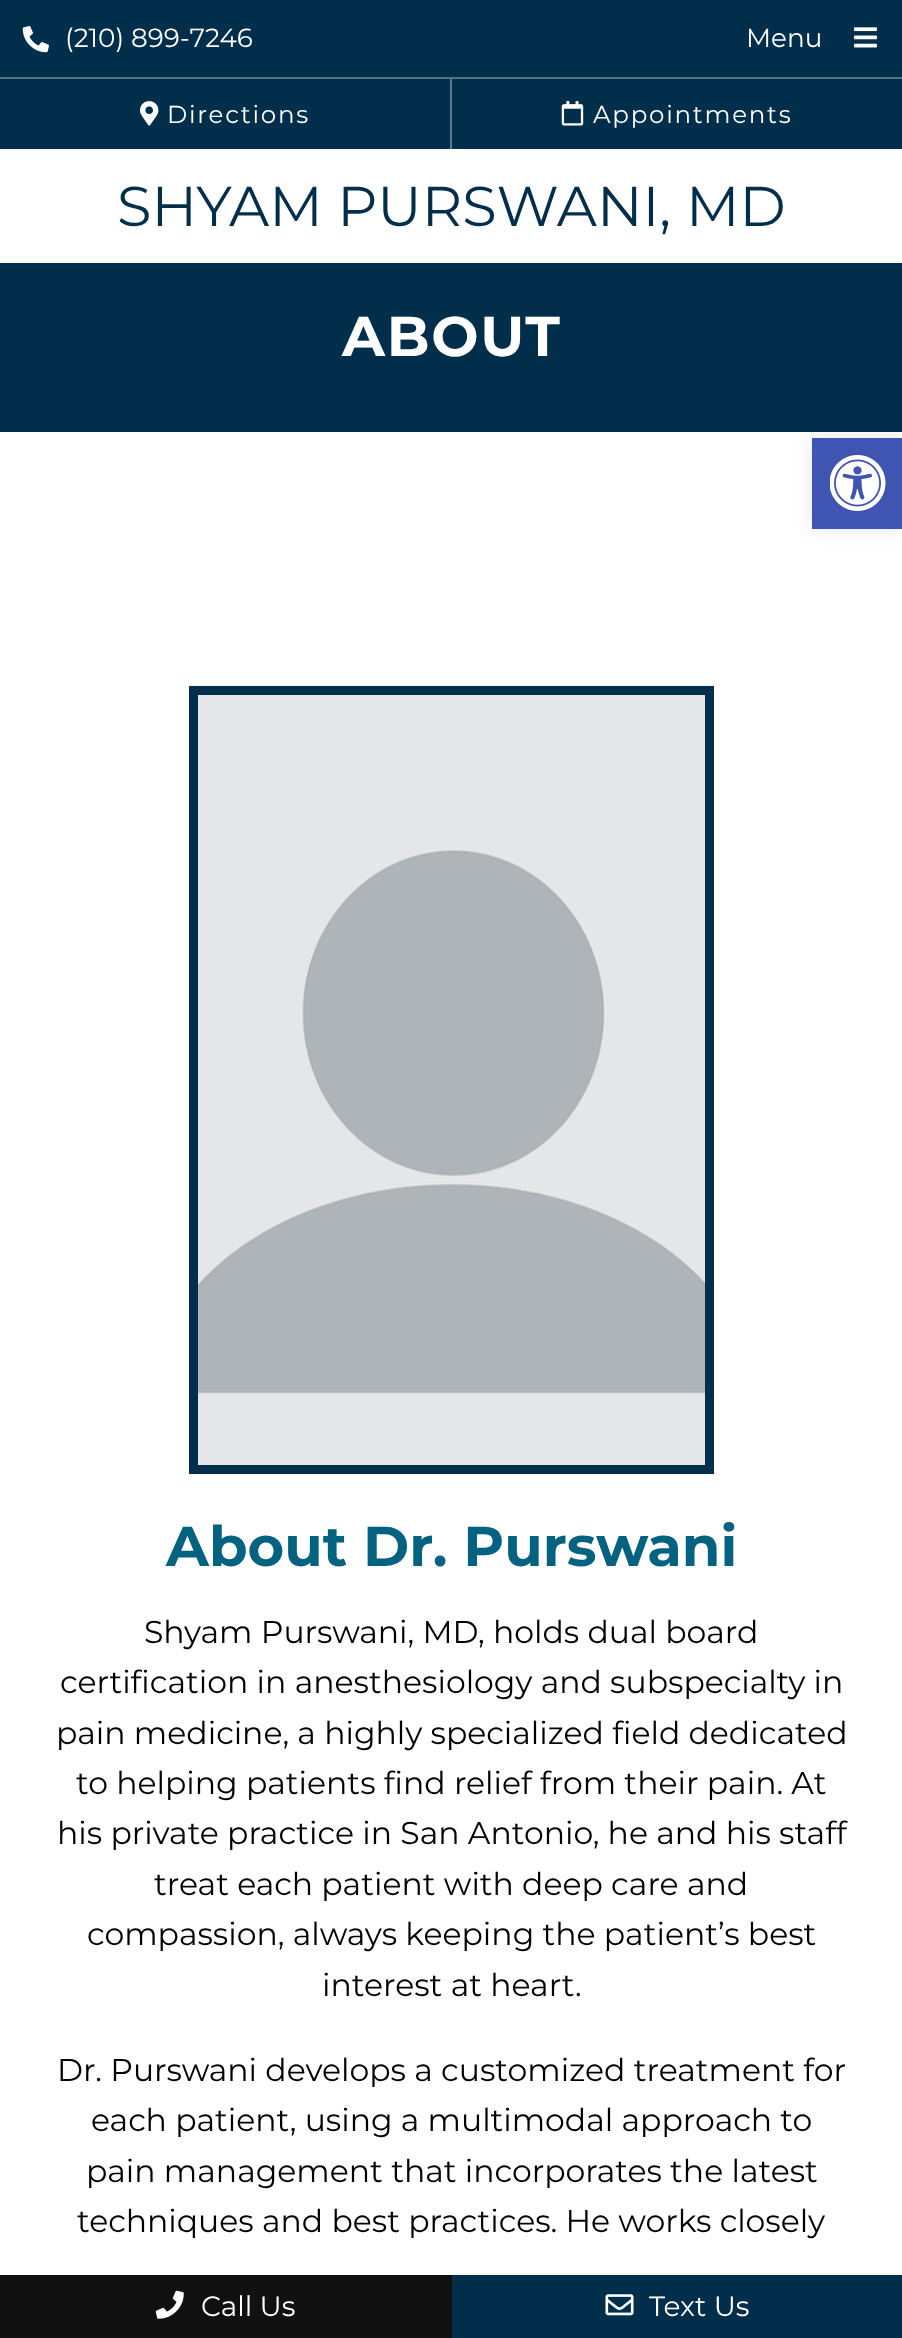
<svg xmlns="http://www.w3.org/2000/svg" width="902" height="2338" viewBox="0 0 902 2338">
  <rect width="100%" height="100%" fill="rgb(255,255,255)"/>
  <rect x="0" y="0" width="902" height="149" fill="rgb(1,46,74)"/>
  <image x="22" y="26" width="27" height="27" href="pic1.png"/>
  <g font-family="Montserrat" font-size="26.25" fill="rgb(255,255,255)">
    <text x="65" y="47">(210) 899-7246</text>
    <text x="746" y="47">Menu</text>
  </g>
  <image x="854" y="27" width="23" height="21" href="pic2.png"/>
  <rect x="0" y="77" width="902" height="2" fill="rgb(82,113,132)"/>
  <rect x="450" y="79" width="2" height="70" fill="rgb(92,121,139)"/>
  <image x="140" y="101" width="19" height="25" href="pic3.png"/>
  <text x="167" y="123" font-family="Montserrat" font-size="24.5" letter-spacing="1.75" fill="rgb(255,255,255)">Directions</text>
  <image x="561" y="101" width="23" height="25" href="pic4.png"/>
  <text x="593" y="123" font-family="Montserrat" font-size="24.5" letter-spacing="1.75" fill="rgb(255,255,255)">Appointments</text>
  <text x="117" y="226" font-family="Montserrat" font-size="56" fill="rgb(1,46,74)">SHYAM PURSWANI, MD</text>
  <rect x="0" y="263" width="902" height="169" fill="rgb(1,46,74)"/>
  <text x="342" y="356" font-family="Montserrat" font-size="56" font-weight="bold" letter-spacing="1.75" fill="rgb(255,255,255)">ABOUT</text>
  <image x="189" y="685" width="525" height="780" href="pic5.png"/>
  <rect x="193.5" y="690.5" width="516" height="779" fill="none" stroke="rgb(1,46,74)" stroke-width="9"/>
  <text x="166" y="1566" font-family="Montserrat" font-size="56" font-weight="bold" fill="rgb(3,98,128)">About Dr. Purswani</text>
  <g font-family="Montserrat" font-size="31.5" fill="rgb(0,0,0)">
    <text x="144" y="1643">Shyam Purswani, MD, holds dual board</text>
    <text x="60" y="1693">certification in anesthesiology and subspecialty in</text>
    <text x="56" y="1744">pain medicine, a highly specialized field dedicated</text>
    <text x="76" y="1794">to helping patients find relief from their pain. At</text>
    <text x="57" y="1844">his private practice in San Antonio, he and his staff</text>
    <text x="154" y="1895">treat each patient with deep care and</text>
    <text x="87" y="1945">compassion, always keeping the patient’s best</text>
    <text x="322" y="1996">interest at heart.</text>
    <text x="57" y="2081">Dr. Purswani develops a customized treatment for</text>
    <text x="91" y="2131">each patient, using a multimodal approach to</text>
    <text x="86" y="2182">pain management that incorporates the latest</text>
    <text x="77" y="2232">techniques and best practices. He works closely</text>
  </g>
  <rect x="812" y="438" width="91" height="91" fill="rgba(0,0,0,0.1)" filter="blur(9px)"/>
  <rect x="812" y="438" width="90" height="91" fill="rgb(64,84,178)"/>
  <image x="830" y="455" width="56" height="56" href="pic6.png"/>
  <rect x="0" y="2275" width="452" height="63" fill="rgb(17,17,17)"/>
  <image x="155" y="2290" width="29" height="29" href="pic7.png"/>
  <text x="201" y="2316" font-family="Montserrat" font-size="28" fill="rgb(255,255,255)">Call Us</text>
  <rect x="452" y="2275" width="450" height="63" fill="rgb(1,46,74)"/>
  <image x="605" y="2294" width="29" height="22" href="pic8.png"/>
  <text x="649" y="2316" font-family="Montserrat" font-size="28" fill="rgb(255,255,255)">Text Us</text>
</svg>
